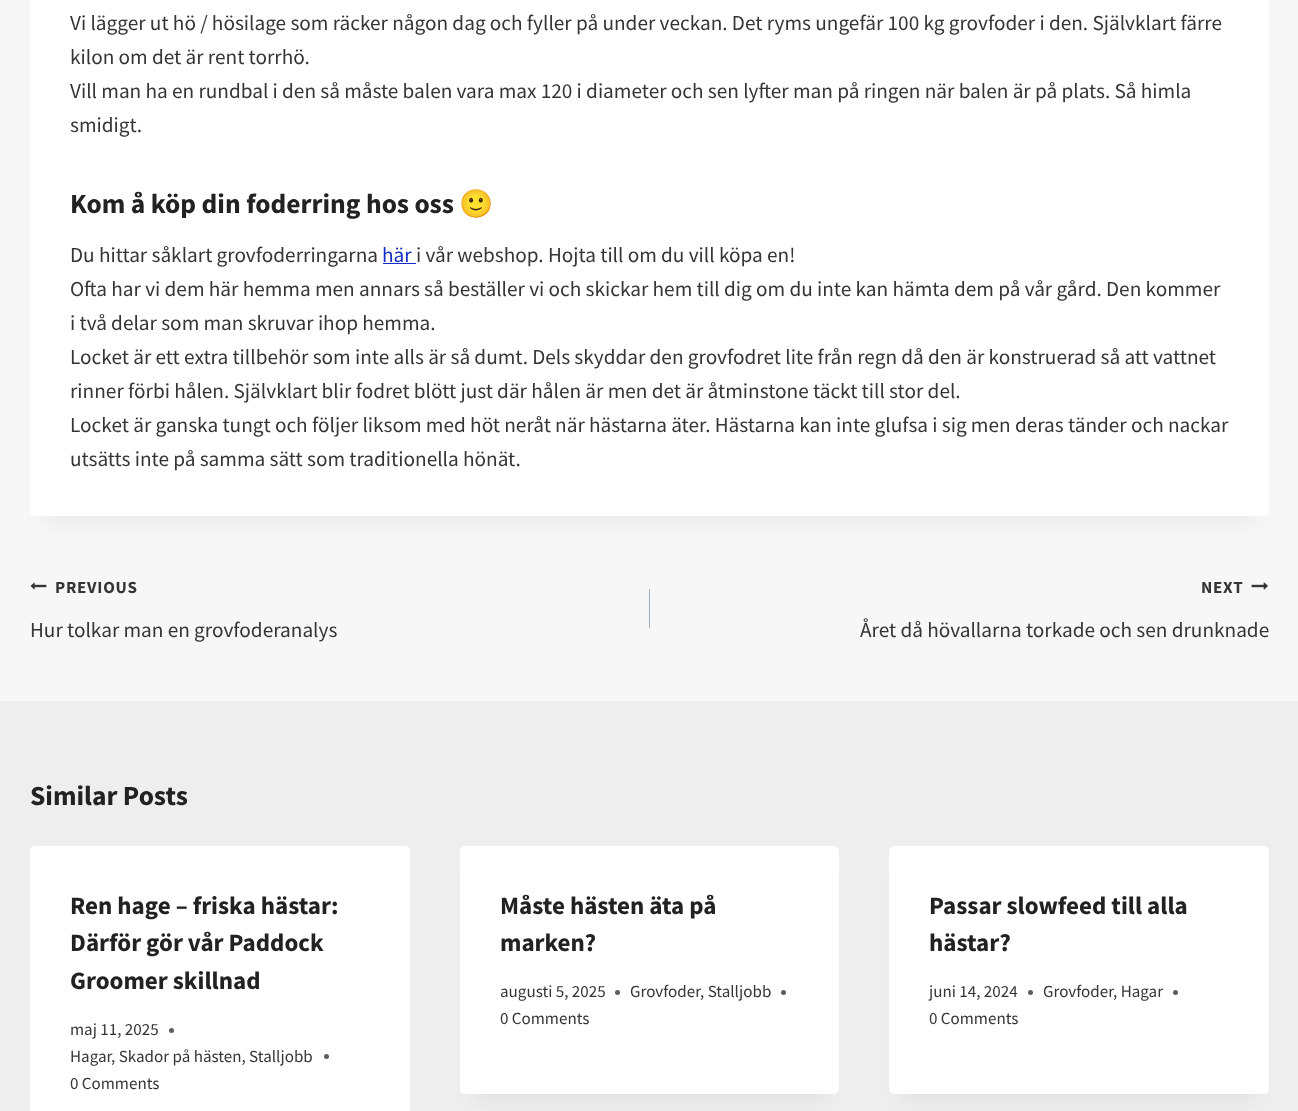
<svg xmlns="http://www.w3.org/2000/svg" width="1298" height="1111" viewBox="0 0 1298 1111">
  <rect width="100%" height="100%" fill="rgb(247,247,247)"/>
  <rect x="43" y="-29" width="1213" height="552" fill="rgba(0,0,0,0.05)" filter="blur(9.5px)"/>
  <rect x="30" y="-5" width="1239" height="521" rx="5" fill="rgb(255,255,255)"/>
  <g font-family="Source Sans Pro" font-size="21.25" fill="rgb(53,53,53)">
    <text>
      <tspan x="70" y="30">Vi lägger ut hö / hösilage som räcker någon dag och fyller på under veckan. Det ryms ungefär 100 kg grovfoder i den. Självklart färre</tspan>
      <tspan x="70" y="64">kilon om det är rent torrhö.</tspan>
      <tspan x="70" y="98">Vill man ha en rundbal i den så måste balen vara max 120 i diameter och sen lyfter man på ringen när balen är på plats. Så himla</tspan>
      <tspan x="70" y="132">smidigt.</tspan>
    </text>
  </g>
  <text x="70" y="213" font-family="Source Sans Pro" font-size="27.5" font-weight="bold" fill="rgb(34,34,34)">Kom å köp din foderring hos oss</text>
  <text x="459" y="213" font-family="Noto Color Emoji" font-size="27.5" font-weight="bold" fill="rgb(34,34,34)">🙂</text>
  <text x="70" y="262" font-family="Source Sans Pro" font-size="21.25" fill="rgb(53,53,53)">Du hittar såklart grovfoderringarna</text>
  <text x="382" y="262" font-family="Source Sans Pro" font-size="21.25" fill="rgb(20,43,197)">här</text>
  <rect x="383" y="263" width="33" height="1" fill="rgb(20,43,197)"/>
  <g font-family="Source Sans Pro" font-size="21.25" fill="rgb(53,53,53)">
    <text x="416" y="262">i vår webshop. Hojta till om du vill köpa en!</text>
    <text>
      <tspan x="70" y="296">Ofta har vi dem här hemma men annars så beställer vi och skickar hem till dig om du inte kan hämta dem på vår gård. Den kommer</tspan>
      <tspan x="70" y="330">i två delar som man skruvar ihop hemma.</tspan>
      <tspan x="70" y="364">Locket är ett extra tillbehör som inte alls är så dumt. Dels skyddar den grovfodret lite från regn då den är konstruerad så att vattnet</tspan>
      <tspan x="70" y="398">rinner förbi hålen. Självklart blir fodret blött just där hålen är men det är åtminstone täckt till stor del.</tspan>
      <tspan x="70" y="432">Locket är ganska tungt och följer liksom med höt neråt när hästarna äter. Hästarna kan inte glufsa i sig men deras tänder och nackar</tspan>
      <tspan x="70" y="466">utsätts inte på samma sätt som traditionella hönät.</tspan>
    </text>
  </g>
  <image x="30" y="582" width="17" height="8" href="pic1.png"/>
  <text x="55" y="593" font-family="Source Sans Pro" font-size="17" font-weight="bold" letter-spacing="0.75" fill="rgb(53,53,53)">PREVIOUS</text>
  <text x="30" y="637" font-family="Source Sans Pro" font-size="21.25" fill="rgb(53,53,53)">Hur tolkar man en grovfoderanalys</text>
  <rect x="649" y="589" width="1" height="39" fill="rgb(160,174,192)"/>
  <text x="1201" y="593" font-family="Source Sans Pro" font-size="17" font-weight="bold" letter-spacing="0.75" fill="rgb(53,53,53)">NEXT</text>
  <image x="1251" y="582" width="17" height="8" href="pic2.png"/>
  <text x="860" y="637" font-family="Source Sans Pro" font-size="21.25" fill="rgb(53,53,53)">Året då hövallarna torkade och sen drunknade</text>
  <rect x="0" y="701" width="1298" height="410" fill="rgb(238,238,238)"/>
  <text x="30" y="805" font-family="Source Sans Pro" font-size="27.5" font-weight="bold" fill="rgb(34,34,34)">Similar Posts</text>
  <rect x="30" y="846" width="380" height="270" rx="5" fill="rgb(255,255,255)"/>
  <g font-family="Source Sans Pro" font-size="25" font-weight="bold" fill="rgb(34,34,34)">
    <text>
      <tspan x="70" y="914">Ren hage – friska hästar:</tspan>
      <tspan x="70" y="951">Därför gör vår Paddock</tspan>
      <tspan x="70" y="989">Groomer skillnad</tspan>
    </text>
  </g>
  <text x="70" y="1035" font-family="Source Sans Pro" font-size="17" fill="rgb(53,53,53)">maj 11, 2025</text>
  <circle cx="171.5" cy="1030.5" r="2.5" fill="rgb(93,93,93)"/>
  <g font-family="Source Sans Pro" font-size="17" fill="rgb(53,53,53)">
    <text x="70" y="1062">Hagar</text>
    <text x="111" y="1062">, Skador på hästen, Stalljobb</text>
  </g>
  <circle cx="326.5" cy="1056.5" r="2.5" fill="rgb(93,93,93)"/>
  <text x="70" y="1089" font-family="Source Sans Pro" font-size="17" fill="rgb(53,53,53)">0 Comments</text>
  <rect x="473" y="878" width="353" height="222" fill="rgba(0,0,0,0.05)" filter="blur(9.5px)"/>
  <rect x="460" y="846" width="379" height="248" rx="5" fill="rgb(255,255,255)"/>
  <g font-family="Source Sans Pro" font-size="25" font-weight="bold" fill="rgb(34,34,34)">
    <text>
      <tspan x="500" y="914">Måste hästen äta på</tspan>
      <tspan x="500" y="951">marken?</tspan>
    </text>
  </g>
  <text x="500" y="997" font-family="Source Sans Pro" font-size="17" fill="rgb(53,53,53)">augusti 5, 2025</text>
  <circle cx="617.5" cy="992.5" r="2.5" fill="rgb(93,93,93)"/>
  <g font-family="Source Sans Pro" font-size="17" fill="rgb(53,53,53)">
    <text x="630" y="997">Grovfoder</text>
    <text x="700" y="997">, Stalljobb</text>
  </g>
  <circle cx="783.5" cy="992.5" r="2.5" fill="rgb(93,93,93)"/>
  <text x="500" y="1024" font-family="Source Sans Pro" font-size="17" fill="rgb(53,53,53)">0 Comments</text>
  <rect x="901" y="878" width="355" height="222" fill="rgba(0,0,0,0.05)" filter="blur(9.5px)"/>
  <rect x="889" y="846" width="380" height="248" rx="5" fill="rgb(255,255,255)"/>
  <g font-family="Source Sans Pro" font-size="25" font-weight="bold" fill="rgb(34,34,34)">
    <text>
      <tspan x="929" y="914">Passar slowfeed till alla</tspan>
      <tspan x="929" y="951">hästar?</tspan>
    </text>
  </g>
  <text x="929" y="997" font-family="Source Sans Pro" font-size="17" fill="rgb(53,53,53)">juni 14, 2024</text>
  <circle cx="1030.5" cy="992.5" r="2.5" fill="rgb(93,93,93)"/>
  <g font-family="Source Sans Pro" font-size="17" fill="rgb(53,53,53)">
    <text x="1043" y="997">Grovfoder</text>
    <text x="1113" y="997">, Hagar</text>
  </g>
  <circle cx="1175.5" cy="992.5" r="2.5" fill="rgb(93,93,93)"/>
  <text x="929" y="1024" font-family="Source Sans Pro" font-size="17" fill="rgb(53,53,53)">0 Comments</text>
</svg>
